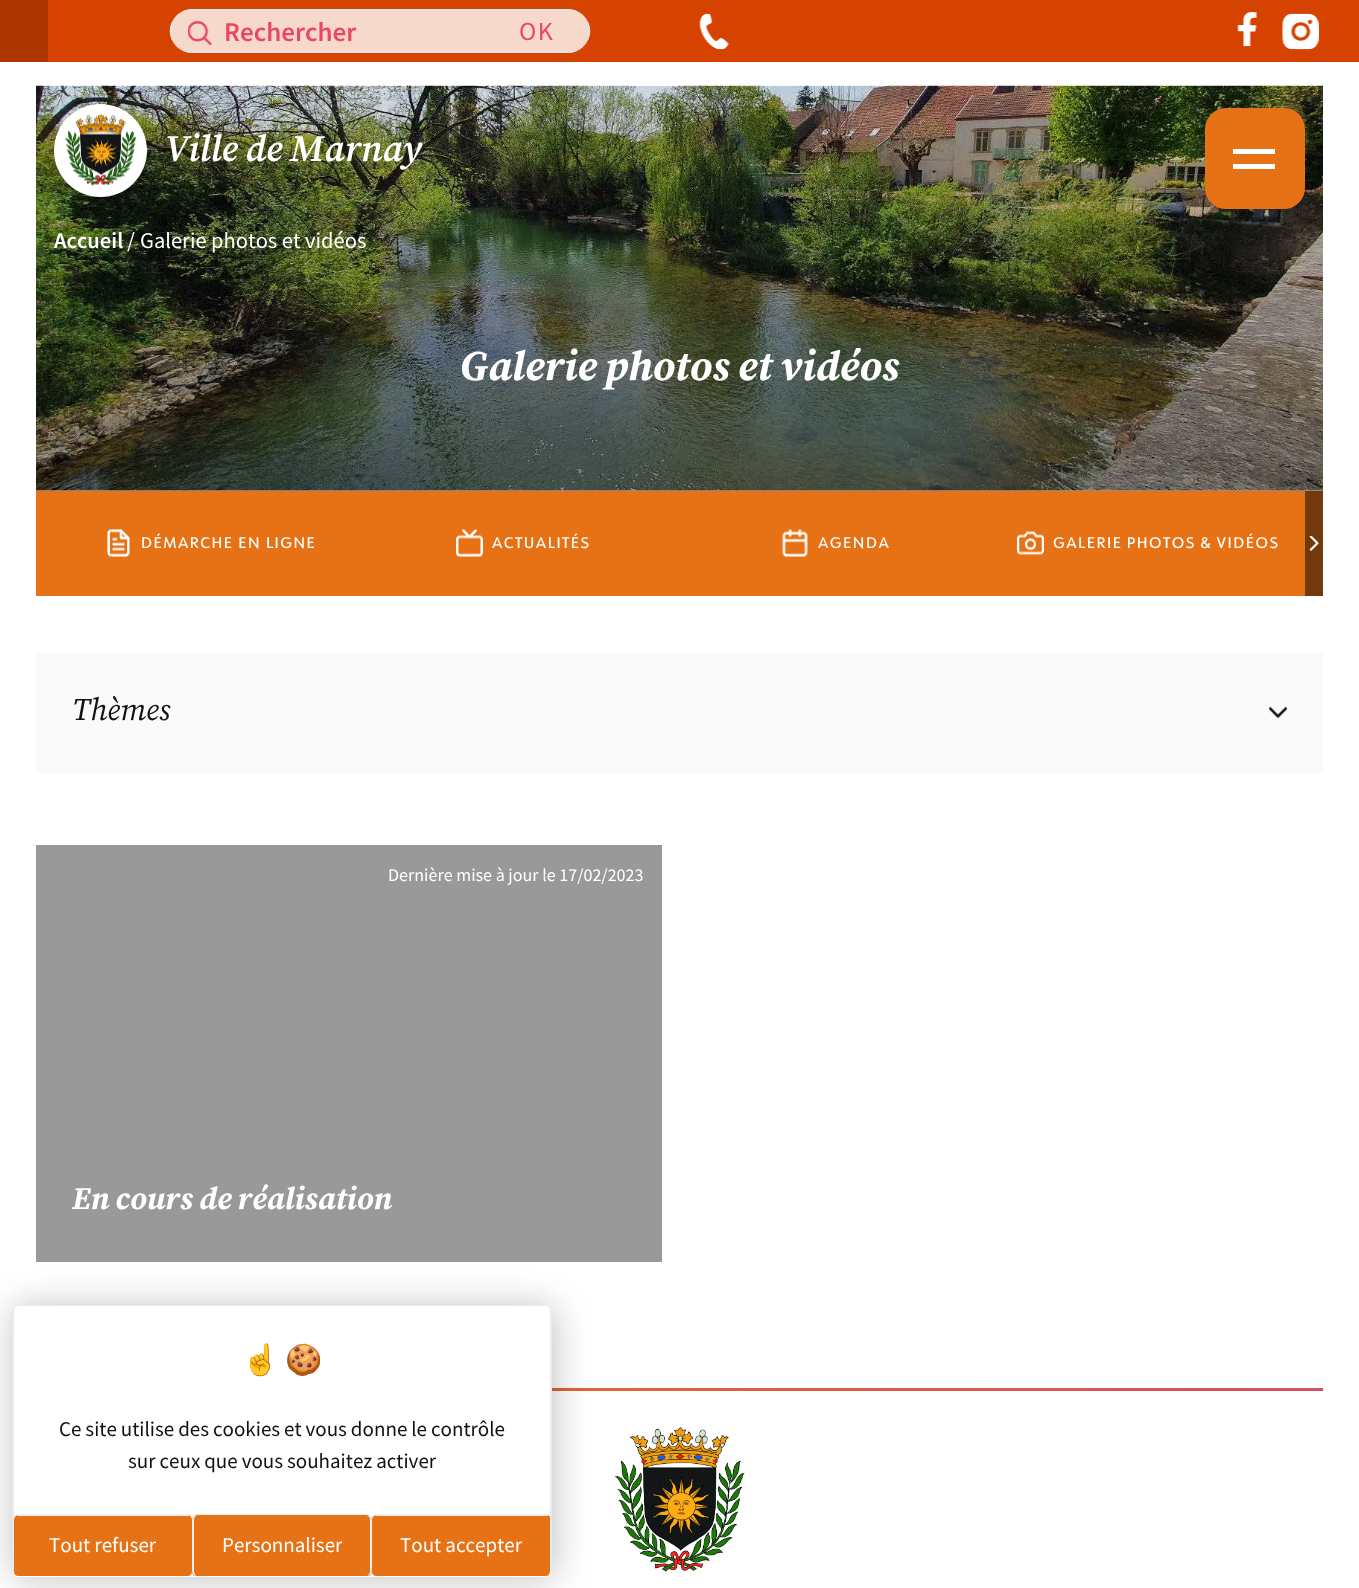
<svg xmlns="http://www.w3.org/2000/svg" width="1359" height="1588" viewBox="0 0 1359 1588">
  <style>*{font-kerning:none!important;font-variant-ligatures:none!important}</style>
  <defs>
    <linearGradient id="g1" gradientUnits="userSpaceOnUse" x1="680" y1="85" x2="680" y2="491"><stop offset="0" stop-color="rgb(0,0,0)" stop-opacity="0.1"/><stop offset="1" stop-color="rgb(0,0,0)" stop-opacity="0.4"/></linearGradient>
    <clipPath id="clip1"><rect x="36" y="348" width="1287" height="44"/></clipPath>
    <linearGradient id="g2" gradientUnits="userSpaceOnUse" x1="36" y1="1389" x2="1323" y2="1389"><stop offset="0" stop-color="rgb(231,114,22)"/><stop offset="1" stop-color="rgb(215,79,99)"/></linearGradient>
  </defs>
  <rect width="100%" height="100%" fill="rgb(255,255,255)"/>
  <rect x="48" y="0" width="1311" height="62" fill="rgb(214,66,0)"/>
  <rect x="0" y="0" width="48" height="62" fill="rgb(173,53,0)"/>
  <rect x="170" y="9" width="420" height="44" rx="22" fill="rgb(247,217,204)"/>
  <path d="M192 53H568C571 53 574 52 577 51H183C186 52 189 53 192 53ZM172 40C169 34 169 28 172 22ZM192 9C189 9 186 10 183 11H577C574 10 571 9 568 9ZM588 22V40C591 34 591 28 588 22Z" fill="rgb(229,229,229)" fill-rule="evenodd"/>
  <image x="188" y="21" width="24" height="24" href="pic1.png"/>
  <text x="224" y="41" font-family="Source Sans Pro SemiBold" font-size="27" font-weight="600" fill="rgb(235,71,95)">Rechercher</text>
  <text x="519" y="40" font-family="Source Sans Pro" font-size="26" letter-spacing="1.5" fill="rgb(235,71,95)">OK</text>
  <image x="699" y="13" width="30" height="37" href="pic2.png"/>
  <image x="1237" y="12" width="21" height="35" href="pic3.png"/>
  <image x="1282" y="13" width="37" height="37" href="pic4.png"/>
  <image x="36" y="85" width="1287" height="406" href="pic6.png"/>
  <rect x="36" y="86" width="1287" height="405" fill="url(#g1)"/>
  <circle cx="100.5" cy="150.5" r="46.5" fill="rgb(255,255,255)"/>
  <image x="65" y="114" width="71" height="72" href="pic5.png"/>
  <text x="165" y="161" word-spacing="-1" font-family="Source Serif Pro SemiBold" font-size="37.5" font-weight="600" font-style="italic" fill="rgb(255,255,255)">Ville de Marnay</text>
  <rect x="1205" y="108" width="100" height="101" rx="21" fill="rgb(231,114,22)"/>
  <rect x="1233" y="149" width="42" height="5" fill="rgb(255,255,255)"/>
  <rect x="1233" y="164" width="42" height="5" fill="rgb(255,255,255)"/>
  <text x="54" y="248" font-family="Source Sans Pro SemiBold" font-size="22.5" font-weight="600" fill="rgb(255,255,255)">Accueil</text>
  <g font-family="Source Sans Pro" font-size="22.5" fill="rgb(255,255,255)">
    <text x="127" y="248">/</text>
    <text x="140" y="248">Galerie photos et vidéos</text>
  </g>
  <g clip-path="url(#clip1)">
    <text x="460" y="380" word-spacing="-1" font-family="Source Serif Pro" font-size="42" font-weight="bold" font-style="italic" fill="rgb(255,255,255)">Galerie photos et vidéos</text>
  </g>
  <rect x="36" y="491" width="1269" height="105" fill="rgb(231,114,22)"/>
  <image x="107" y="529" width="23" height="28" href="pic7.png"/>
  <text x="141" y="548" font-family="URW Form" font-size="15" font-weight="500" letter-spacing="1.5" fill="rgb(255,255,255)">DÉMARCHE EN LIGNE</text>
  <image x="456" y="529" width="27" height="28" href="pic8.png"/>
  <text x="492" y="548" font-family="URW Form" font-size="15" font-weight="500" letter-spacing="1.5" fill="rgb(255,255,255)">ACTUALITÉS</text>
  <image x="782" y="529" width="26" height="28" href="pic9.png"/>
  <text x="818" y="548" font-family="URW Form" font-size="15" font-weight="500" letter-spacing="1.5" fill="rgb(255,255,255)">AGENDA</text>
  <image x="1017" y="531" width="27" height="24" href="pic10.png"/>
  <text x="1053" y="548" word-spacing="-0.5" font-family="URW Form" font-size="15" font-weight="500" letter-spacing="1.5" fill="rgb(255,255,255)">GALERIE PHOTOS &amp; VIDÉOS</text>
  <rect x="1305" y="491" width="18" height="105" fill="rgb(116,57,11)"/>
  <image x="1309" y="536" width="10" height="15" href="pic11.png"/>
  <rect x="36" y="653" width="1287" height="120" fill="rgb(250,250,250)"/>
  <text x="72" y="720" font-family="Source Serif Pro" font-size="31.5" font-style="italic" fill="rgb(18,18,18)">Thèmes</text>
  <image x="1269" y="706" width="18" height="13" href="pic12.png"/>
  <rect x="36" y="845" width="626" height="417" fill="rgb(153,153,153)"/>
  <text x="388" y="881" font-family="Source Sans Pro" font-size="18" fill="rgb(255,255,255)">Dernière mise à jour le 17/02/2023</text>
  <text x="72" y="1209" word-spacing="-1" font-family="Source Serif Pro" font-size="31.5" font-weight="bold" font-style="italic" fill="rgb(255,255,255)">En cours de réalisation</text>
  <rect x="552" y="1388" width="771" height="3" fill="url(#g2)"/>
  <image x="614" y="1427" width="131" height="145" href="pic13.png"/>
  <rect x="14" y="1307" width="540" height="271" rx="6" fill="rgba(0,0,0,0.25)" filter="blur(18px)"/>
  <rect x="12" y="1305" width="540" height="272" rx="6" fill="rgb(255,255,255)"/>
  <path d="M18 1305H546C549 1305 552 1308 552 1311V1570C552 1574 549 1576 546 1576H18C15 1576 12 1574 12 1570V1311C12 1308 15 1305 18 1305ZM18 1306H546C548 1306 550 1309 550 1311V1570C550 1574 548 1576 546 1576H18C16 1576 14 1574 14 1570V1311C14 1309 16 1306 18 1306Z" fill="rgb(235,235,235)" fill-rule="evenodd"/>
  <g font-family="Noto Color Emoji" font-size="30" font-weight="bold" fill="rgb(231,114,22)">
    <text x="242" y="1370">☝️</text>
    <text x="285" y="1370">🍪</text>
  </g>
  <g font-family="Source Sans Pro" font-size="21" fill="rgb(18,18,18)">
    <text x="59" y="1436" word-spacing="-0.25">Ce site utilise des cookies et vous donne le contrôle</text>
    <text x="128" y="1468" word-spacing="-0.25">sur ceux que vous souhaitez activer</text>
  </g>
  <path d="M20 1514H186C189 1514 192 1517 192 1520V1571C192 1573 191 1576 188 1576H18C15 1576 14 1573 14 1571V1520C14 1517 17 1514 20 1514Z" fill="rgb(231,114,22)"/>
  <rect x="17" y="1514" width="172" height="2" fill="rgb(238,238,238)"/>
  <text x="49" y="1552" font-family="Source Sans Pro" font-size="21" fill="rgb(255,255,255)">Tout refuser</text>
  <path d="M198 1514H366C369 1514 372 1517 372 1520V1571C372 1573 371 1576 368 1576H196C193 1576 192 1573 192 1571V1520C192 1517 195 1514 198 1514Z" fill="rgb(231,114,22)"/>
  <path d="M198 1514H366C369 1514 372 1516 372 1520V1570C372 1574 369 1576 366 1576H198C195 1576 192 1574 192 1570V1520C192 1516 195 1514 198 1514ZM198 1515H366C368 1515 370 1517 370 1520V1570C370 1574 368 1576 366 1576H198C196 1576 194 1574 194 1570V1520C194 1517 196 1515 198 1515Z" fill="rgb(238,238,238)" fill-rule="evenodd"/>
  <text x="222" y="1552" font-family="Source Sans Pro" font-size="21" fill="rgb(255,255,255)">Personnaliser</text>
  <path d="M378 1514H545C547 1514 550 1515 550 1518V1570C550 1574 548 1576 546 1576H376C373 1576 372 1573 372 1571V1520C372 1517 375 1514 378 1514Z" fill="rgb(231,114,22)"/>
  <rect x="375" y="1514" width="173" height="2" fill="rgb(238,238,238)"/>
  <text x="400" y="1552" font-family="Source Sans Pro" font-size="21" fill="rgb(255,255,255)">Tout accepter</text>
</svg>
